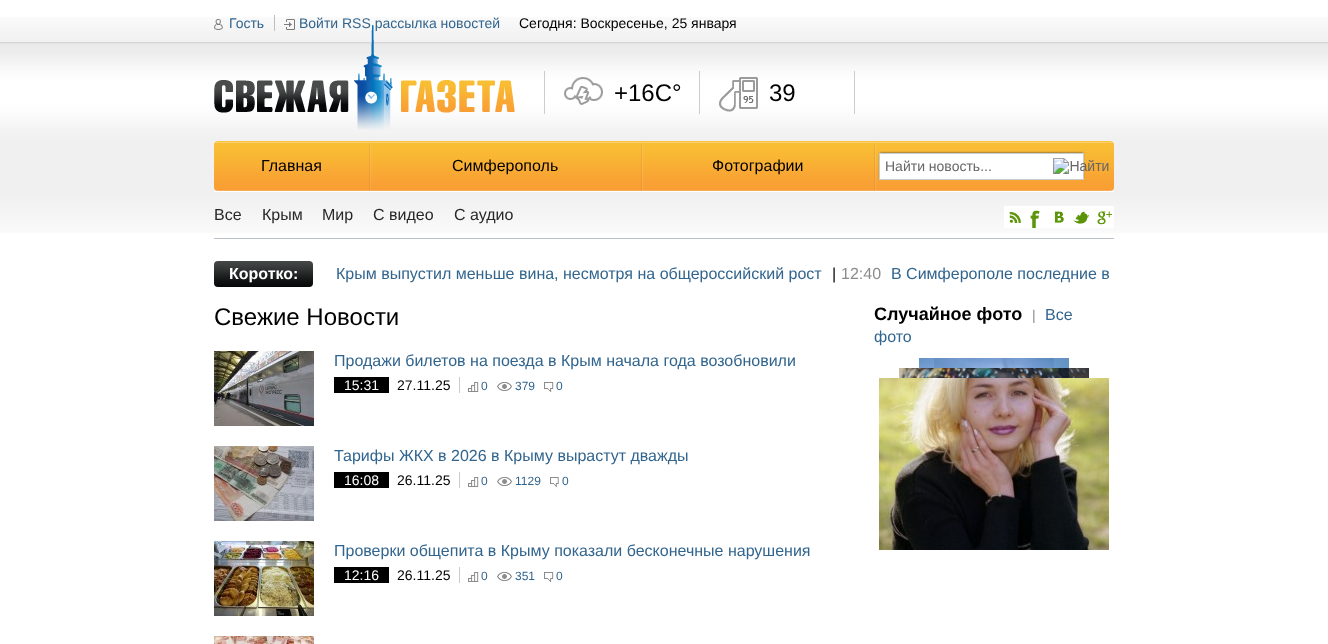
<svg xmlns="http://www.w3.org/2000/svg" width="1328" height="644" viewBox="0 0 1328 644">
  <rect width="100%" height="100%" fill="rgb(255,255,255)"/>
  <image x="0" y="17" width="1328" height="216" href="pic1.png"/>
  <image x="214" y="25" width="301" height="105" href="pic4.png"/>
  <image x="214" y="19" width="9" height="11" href="pic2.png"/>
  <text x="229" y="28" font-family="Liberation Sans" font-size="14" fill="rgb(50,101,142)">Гость</text>
  <rect x="274" y="15" width="1" height="16" fill="rgb(186,192,197)"/>
  <image x="284" y="19" width="11" height="11" href="pic3.png"/>
  <g font-family="Liberation Sans" font-size="14" fill="rgb(50,101,142)">
    <text x="299" y="28">Войти</text>
    <text x="342" y="28">RSS рассылка новостей</text>
  </g>
  <text x="519" y="28" font-family="Liberation Sans" font-size="14" fill="rgb(0,0,0)">Сегодня: Воскресенье, 25 января</text>
  <rect x="699" y="71" width="1" height="43" fill="rgb(205,205,205)"/>
  <rect x="544" y="71" width="1" height="43" fill="rgb(205,205,205)"/>
  <image x="564" y="77" width="39" height="28" href="pic5.png"/>
  <text x="614" y="101" font-family="Liberation Sans" font-size="24" fill="rgb(0,0,0)">+16C°</text>
  <rect x="854" y="71" width="1" height="43" fill="rgb(205,205,205)"/>
  <image x="719" y="77" width="39" height="35" href="pic6.png"/>
  <text x="769" y="101" font-family="Liberation Sans" font-size="24" fill="rgb(0,0,0)">39</text>
  <rect x="214" y="191" width="900" height="1" fill="rgb(255,255,255)"/>
  <image x="214" y="141" width="155" height="50" href="pic7.png"/>
  <text x="261" y="171" font-family="Liberation Sans" font-size="16" fill="rgb(0,0,0)">Главная</text>
  <image x="369" y="141" width="272" height="50" href="pic8.png"/>
  <text x="452" y="171" font-family="Liberation Sans" font-size="16" fill="rgb(0,0,0)">Симферополь</text>
  <image x="641" y="141" width="233" height="50" href="pic9.png"/>
  <text x="712" y="171" font-family="Liberation Sans" font-size="16" fill="rgb(0,0,0)">Фотографии</text>
  <image x="874" y="141" width="240" height="50" href="pic10.png"/>
  <rect x="880" y="153" width="203" height="25" fill="rgb(61,63,63)" filter="blur(1px)"/>
  <rect x="879.5" y="153.5" width="204" height="26" fill="rgb(255,255,255)" stroke="rgb(200,205,209)"/>
  <text x="885" y="171" font-family="Liberation Sans" font-size="14" fill="rgb(102,102,102)">Найти новость...</text>
  <image x="1053" y="158" width="56" height="16" href="pic11.png"/>
  <rect x="214" y="238" width="900" height="1" fill="rgb(186,192,197)"/>
  <g font-family="Liberation Sans" font-size="16" fill="rgb(39,39,39)">
    <text x="214" y="220">Все</text>
    <text x="262" y="220">Крым</text>
    <text x="322" y="220">Мир</text>
    <text x="373" y="220">С видео</text>
    <text x="454" y="220">С аудио</text>
  </g>
  <image x="1004" y="206" width="22" height="22" href="pic12.png"/>
  <image x="1026" y="206" width="22" height="22" href="pic13.png"/>
  <image x="1048" y="206" width="22" height="22" href="pic14.png"/>
  <image x="1070" y="206" width="22" height="22" href="pic15.png"/>
  <image x="1092" y="206" width="22" height="22" href="pic16.png"/>
  <image x="214" y="261" width="99" height="26" href="pic17.png"/>
  <text x="229" y="279" font-family="Liberation Sans" font-size="16" font-weight="bold" fill="rgb(255,255,255)">Коротко:</text>
  <text x="336" y="279" font-family="Liberation Sans" font-size="16" fill="rgb(50,101,142)">Крым выпустил меньше вина, несмотря на общероссийский рост</text>
  <text x="832" y="279" font-family="Liberation Sans" font-size="16" fill="rgb(0,0,0)">|</text>
  <text x="841" y="279" font-family="Liberation Sans" font-size="16" fill="rgb(140,140,140)">12:40</text>
  <text x="891" y="279" font-family="Liberation Sans" font-size="16" fill="rgb(50,101,142)">В Симферополе последние в</text>
  <text x="214" y="325" font-family="Liberation Sans" font-size="24" fill="rgb(0,0,0)">Свежие Новости</text>
  <image x="214" y="351" width="100" height="75" href="pic18.png"/>
  <text x="334" y="366" font-family="Liberation Sans" font-size="16" fill="rgb(50,101,142)">Продажи билетов на поезда в Крым начала года возобновили</text>
  <rect x="334" y="377" width="55" height="16" fill="rgb(0,0,0)"/>
  <text x="344" y="390" font-family="Liberation Sans" font-size="14" fill="rgb(255,255,255)">15:31</text>
  <text x="397" y="390" font-family="Liberation Sans" font-size="14" fill="rgb(0,0,0)">27.11.25</text>
  <rect x="459" y="377" width="1" height="16" fill="rgb(204,204,204)"/>
  <image x="468" y="382" width="11" height="10" href="pic19.png"/>
  <text x="481" y="390" font-family="Liberation Sans" font-size="12" fill="rgb(50,101,142)">0</text>
  <image x="497" y="382" width="15" height="9" href="pic20.png"/>
  <text x="515" y="390" font-family="Liberation Sans" font-size="12" fill="rgb(50,101,142)">379</text>
  <image x="544" y="382" width="10" height="10" href="pic21.png"/>
  <text x="556" y="390" font-family="Liberation Sans" font-size="12" fill="rgb(50,101,142)">0</text>
  <image x="214" y="446" width="100" height="75" href="pic22.png"/>
  <text x="334" y="461" font-family="Liberation Sans" font-size="16" fill="rgb(50,101,142)">Тарифы ЖКХ в 2026 в Крыму вырастут дважды</text>
  <rect x="334" y="472" width="55" height="16" fill="rgb(0,0,0)"/>
  <text x="344" y="485" font-family="Liberation Sans" font-size="14" fill="rgb(255,255,255)">16:08</text>
  <text x="397" y="485" font-family="Liberation Sans" font-size="14" fill="rgb(0,0,0)">26.11.25</text>
  <rect x="459" y="472" width="1" height="16" fill="rgb(204,204,204)"/>
  <image x="468" y="477" width="11" height="10" href="pic19.png"/>
  <text x="481" y="485" font-family="Liberation Sans" font-size="12" fill="rgb(50,101,142)">0</text>
  <image x="497" y="477" width="16" height="9" href="pic23.png"/>
  <text x="515" y="485" font-family="Liberation Sans" font-size="12" fill="rgb(50,101,142)">1129</text>
  <image x="550" y="477" width="9" height="10" href="pic24.png"/>
  <text x="562" y="485" font-family="Liberation Sans" font-size="12" fill="rgb(50,101,142)">0</text>
  <image x="214" y="541" width="100" height="75" href="pic25.png"/>
  <text x="334" y="556" font-family="Liberation Sans" font-size="16" fill="rgb(50,101,142)">Проверки общепита в Крыму показали бесконечные нарушения</text>
  <rect x="334" y="567" width="55" height="16" fill="rgb(0,0,0)"/>
  <text x="344" y="580" font-family="Liberation Sans" font-size="14" fill="rgb(255,255,255)">12:16</text>
  <text x="397" y="580" font-family="Liberation Sans" font-size="14" fill="rgb(0,0,0)">26.11.25</text>
  <rect x="459" y="567" width="1" height="16" fill="rgb(204,204,204)"/>
  <image x="468" y="572" width="11" height="10" href="pic19.png"/>
  <text x="481" y="580" font-family="Liberation Sans" font-size="12" fill="rgb(50,101,142)">0</text>
  <image x="497" y="572" width="15" height="9" href="pic20.png"/>
  <text x="515" y="580" font-family="Liberation Sans" font-size="12" fill="rgb(50,101,142)">351</text>
  <image x="544" y="572" width="10" height="10" href="pic21.png"/>
  <text x="556" y="580" font-family="Liberation Sans" font-size="12" fill="rgb(50,101,142)">0</text>
  <image x="214" y="636" width="100" height="8" href="pic26.png"/>
  <text x="874" y="320" font-family="Liberation Sans" font-size="18" font-weight="bold" fill="rgb(0,0,0)">Случайное фото</text>
  <text x="1032" y="320" font-family="Liberation Sans" font-size="14" fill="rgb(140,140,140)">|</text>
  <g font-family="Liberation Sans" font-size="16" fill="rgb(50,101,142)">
    <text x="1045" y="320">Все</text>
    <text x="874" y="342">фото</text>
  </g>
  <image x="934" y="358" width="120" height="20" href="pic28.png"/>
  <image x="919" y="358" width="150" height="20" href="pic27.png"/>
  <image x="899" y="368" width="190" height="10" href="pic29.png"/>
  <image x="879" y="378" width="230" height="172" href="pic30.png"/>
</svg>
